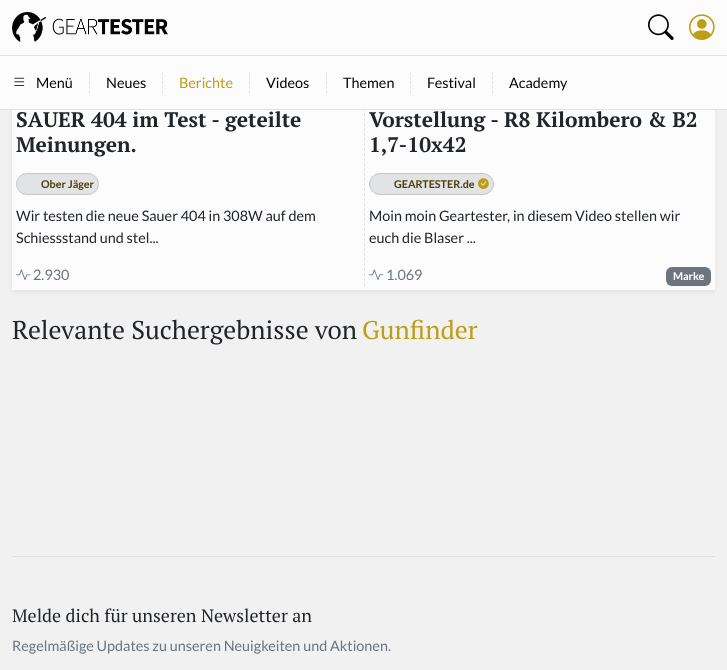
<svg xmlns="http://www.w3.org/2000/svg" width="727" height="670" viewBox="0 0 727 670">
  <rect width="100%" height="100%" fill="rgb(241,241,241)"/>
  <rect x="12" y="-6" width="703" height="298" fill="rgba(0,0,0,0.07)" filter="blur(2px)"/>
  <rect x="0" y="0" width="727" height="55" fill="rgb(252,252,253)"/>
  <image x="12" y="12" width="156" height="30" href="pic1.png"/>
  <image x="648" y="14" width="26" height="26" href="pic2.png"/>
  <image x="689" y="14" width="26" height="26" href="pic3.png"/>
  <rect x="12" y="110" width="703" height="180" fill="rgb(252,252,253)"/>
  <path d="M364.5 68V286" fill="none" stroke="rgb(222,226,230)" stroke-dasharray="3 2"/>
  <rect x="0" y="56" width="727" height="53" fill="rgb(252,252,253)"/>
  <rect x="0" y="55" width="727" height="1" fill="rgb(222,226,230)"/>
  <rect x="0" y="109" width="727" height="1" fill="rgb(222,226,230)"/>
  <path d="M89.5 72V93" fill="none" stroke="rgb(222,226,230)" stroke-dasharray="3 1.5"/>
  <image x="14" y="77" width="11" height="9" href="pic4.png"/>
  <text x="36" y="88" font-family="Lato" font-size="14.4" fill="rgb(0,0,0)">Menü</text>
  <path d="M162.5 72V93" fill="none" stroke="rgb(222,226,230)" stroke-dasharray="3 1.5"/>
  <text x="106" y="88" font-family="Lato" font-size="14.4" fill="rgb(0,0,0)">Neues</text>
  <path d="M249.5 72V93" fill="none" stroke="rgb(222,226,230)" stroke-dasharray="3 1.5"/>
  <text x="179" y="88" font-family="Lato" font-size="14.4" fill="rgb(190,158,22)">Berichte</text>
  <path d="M326.5 72V93" fill="none" stroke="rgb(222,226,230)" stroke-dasharray="3 1.5"/>
  <text x="266" y="88" font-family="Lato" font-size="14.4" fill="rgb(0,0,0)">Videos</text>
  <path d="M410.5 72V93" fill="none" stroke="rgb(222,226,230)" stroke-dasharray="3 1.5"/>
  <text x="343" y="88" font-family="Lato" font-size="14.4" fill="rgb(0,0,0)">Themen</text>
  <path d="M492.5 72V93" fill="none" stroke="rgb(222,226,230)" stroke-dasharray="3 1.5"/>
  <g font-family="Lato" font-size="14.4" fill="rgb(0,0,0)">
    <text x="427" y="88">Festival</text>
    <text x="509" y="88">Academy</text>
  </g>
  <g font-family="PT Serif" font-size="21" font-weight="bold" fill="rgb(33,37,41)">
    <text>
      <tspan x="16" y="127">SAUER 404 im Test - geteilte</tspan>
      <tspan x="16" y="152">Meinungen.</tspan>
    </text>
  </g>
  <rect x="16.5" y="173.5" width="82" height="21" rx="10.5" fill="rgb(226,227,229)" stroke="rgb(196,200,203)"/>
  <text x="41" y="188" font-family="Lato" font-size="10.75" font-weight="bold" fill="rgb(76,63,9)">Ober Jäger</text>
  <g font-family="Lato" font-size="14.4" fill="rgb(33,37,41)">
    <text>
      <tspan x="16" y="221">Wir testen die neue Sauer 404 in 308W auf dem</tspan>
      <tspan x="16" y="243">Schiessstand und stel...</tspan>
    </text>
  </g>
  <image x="16" y="269" width="15" height="12" href="pic5.png"/>
  <text x="33" y="280" font-family="Lato" font-size="14.4" fill="rgb(108,117,125)">2.930</text>
  <g font-family="PT Serif" font-size="21" font-weight="bold" fill="rgb(33,37,41)">
    <text>
      <tspan x="369" y="127">Vorstellung - R8 Kilombero &amp; B2</tspan>
      <tspan x="369" y="152">1,7-10x42</tspan>
    </text>
  </g>
  <rect x="369.5" y="173.5" width="124" height="21" rx="10.5" fill="rgb(226,227,229)" stroke="rgb(196,200,203)"/>
  <text x="394" y="188" font-family="Lato" font-size="10.75" font-weight="bold" fill="rgb(76,63,9)">GEARTESTER.de</text>
  <image x="478" y="178" width="11" height="11" href="pic6.png"/>
  <g font-family="Lato" font-size="14.4" fill="rgb(33,37,41)">
    <text>
      <tspan x="369" y="221">Moin moin Geartester, in diesem Video stellen wir</tspan>
      <tspan x="369" y="243">euch die Blaser ...</tspan>
    </text>
  </g>
  <image x="369" y="269" width="15" height="12" href="pic5.png"/>
  <text x="386" y="280" font-family="Lato" font-size="14.4" fill="rgb(108,117,125)">1.069</text>
  <rect x="666" y="267" width="45" height="19" rx="6" fill="rgb(108,117,125)"/>
  <text x="673" y="280" font-family="Lato" font-size="10.75" font-weight="bold" fill="rgb(255,255,255)">Marke</text>
  <text x="12" y="339" font-family="PT Serif" font-size="25.75" fill="rgb(33,37,41)">Relevante Suchergebnisse von</text>
  <text x="362" y="339" font-family="PT Serif" font-size="25.75" fill="rgb(190,158,22)">Gunfinder</text>
  <rect x="12" y="556" width="703" height="1" fill="rgb(222,226,230)"/>
  <text x="12" y="622" font-family="PT Serif" font-size="18" fill="rgb(33,37,41)">Melde dich für unseren Newsletter an</text>
  <text x="12" y="651" font-family="Lato" font-size="14.4" fill="rgb(108,117,125)">Regelmäßige Updates zu unseren Neuigkeiten und Aktionen.</text>
</svg>
